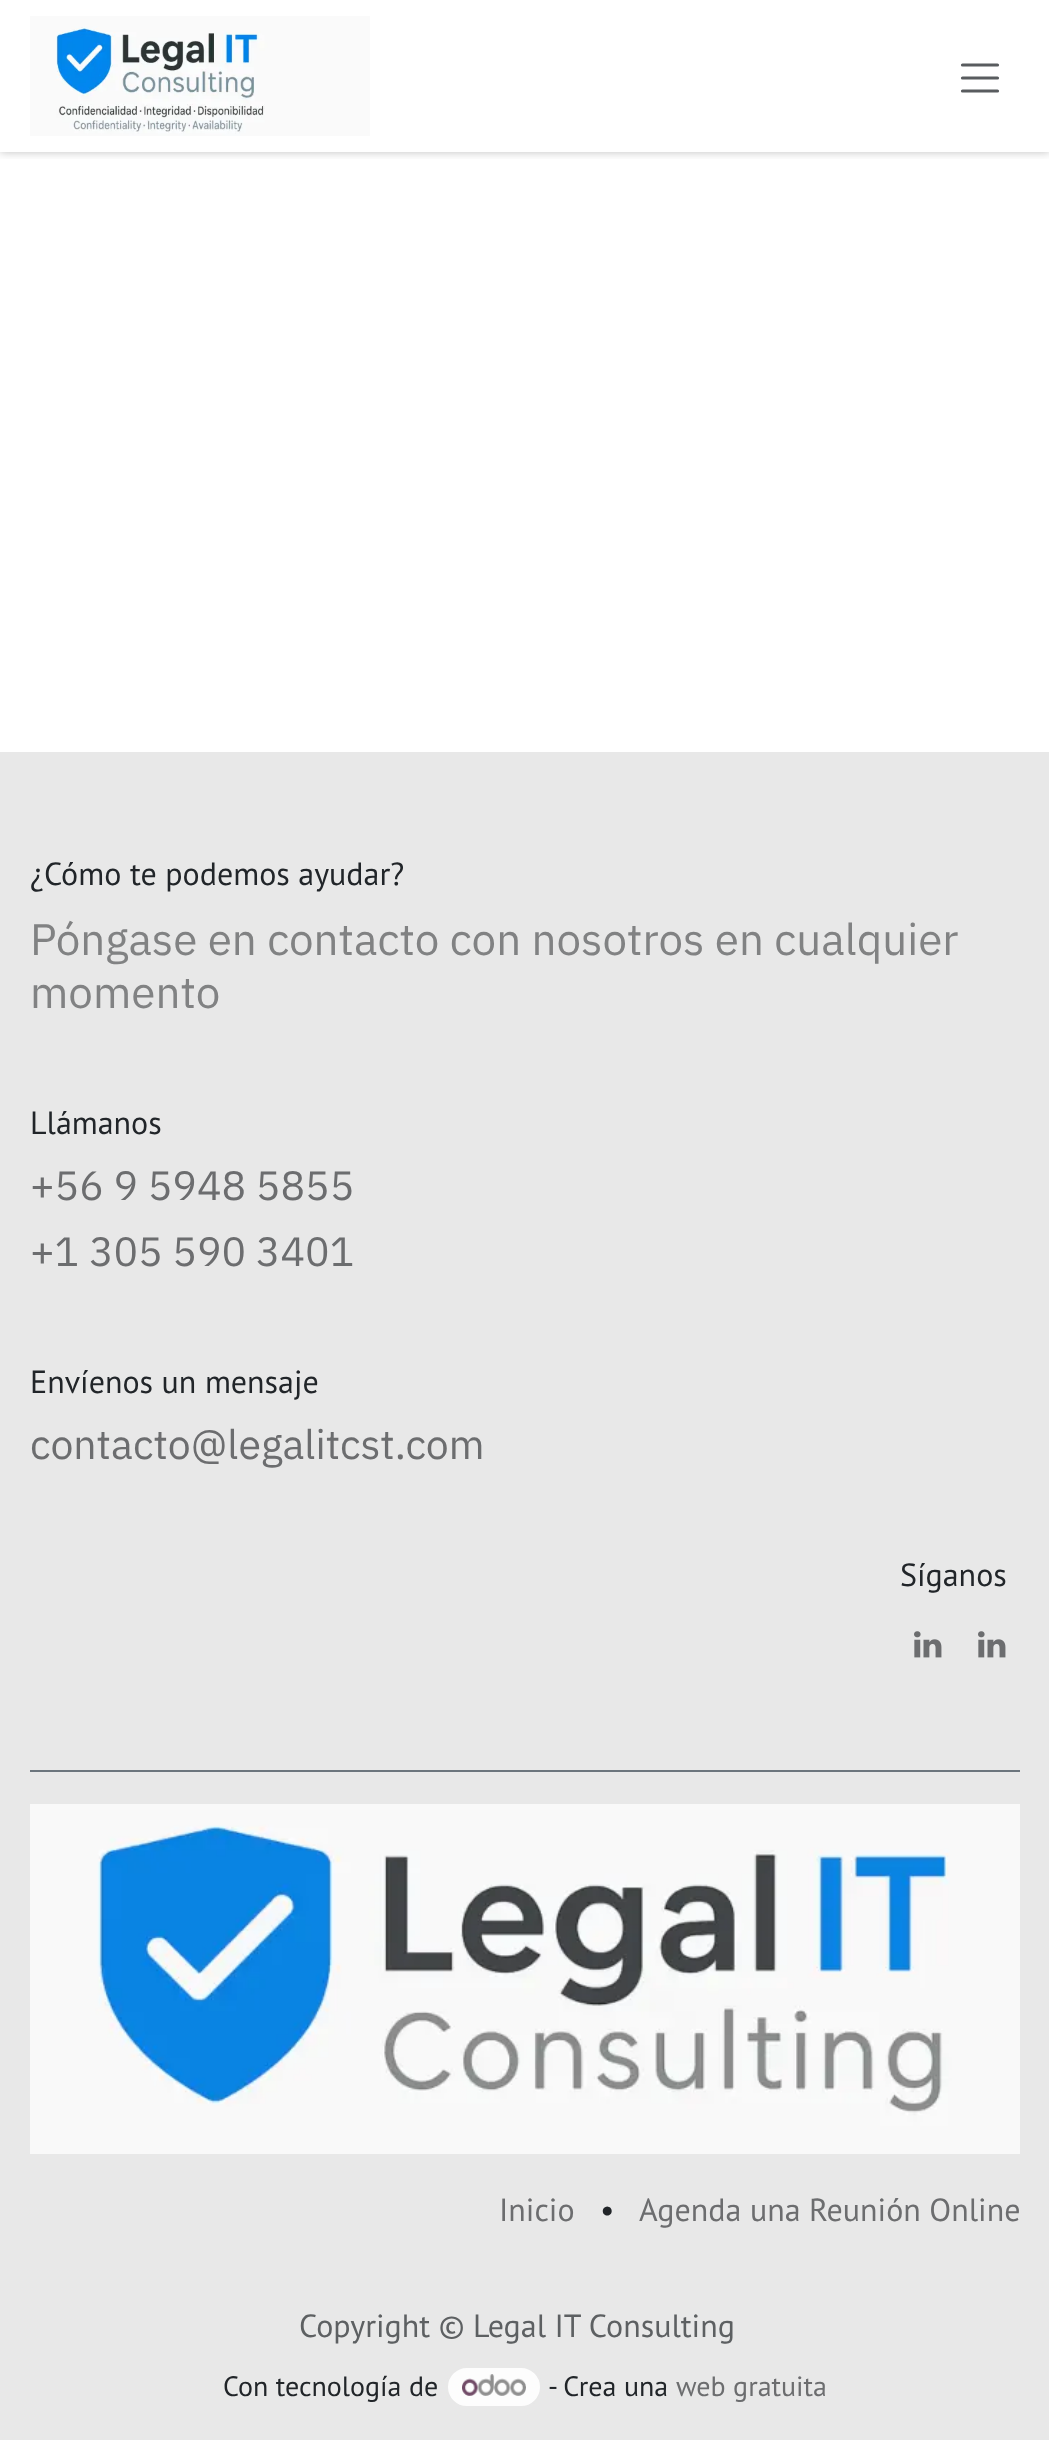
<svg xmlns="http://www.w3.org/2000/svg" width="1049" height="2440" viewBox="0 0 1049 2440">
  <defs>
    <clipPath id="clip1"><rect x="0" y="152" width="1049" height="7"/></clipPath>
  </defs>
  <rect width="100%" height="100%" fill="rgb(255,255,255)"/>
  <g clip-path="url(#clip1)">
    <rect x="0" y="0" width="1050" height="152" fill="rgba(0,0,0,0.25)" filter="blur(5px)"/>
  </g>
  <image x="30" y="16" width="340" height="120" href="pic1.png"/>
  <path d="M962.5 65H997.5M962.5 78H997.5M962.5 91H997.5" fill="none" stroke="rgb(89,92,95)" stroke-width="3.2" stroke-linecap="round"/>
  <rect x="0" y="752" width="1049" height="1688" fill="rgb(232,232,232)"/>
  <text x="30" y="885" font-family="PT Sans" font-size="32" fill="rgb(33,37,41)">¿Cómo te podemos ayudar?</text>
  <g font-family="IBM Plex Sans" font-size="43.95" fill="rgb(129,130,131)">
    <text>
      <tspan x="30" y="955">Póngase en contacto con nosotros en cualquier</tspan>
      <tspan x="30" y="1008">momento</tspan>
    </text>
  </g>
  <text x="30" y="1134" font-family="PT Sans" font-size="32" fill="rgb(33,37,41)">Llámanos</text>
  <g font-family="IBM Plex Sans" font-size="41" fill="rgb(108,109,111)">
    <text>
      <tspan x="30" y="1200">+56 9 5948 5855</tspan>
      <tspan x="30" y="1266">+1 305 590 3401</tspan>
    </text>
  </g>
  <text x="30" y="1393" font-family="PT Sans" font-size="32" fill="rgb(33,37,41)">Envíenos un mensaje</text>
  <text x="30" y="1459" font-family="IBM Plex Sans" font-size="41" fill="rgb(108,109,111)">contacto@legalitcst.com</text>
  <text x="900" y="1586" font-family="PT Sans" font-size="32" fill="rgb(33,37,41)">Síganos</text>
  <image x="914" y="1631" width="28" height="27" href="pic2.png"/>
  <image x="978" y="1631" width="28" height="27" href="pic2.png"/>
  <rect x="30" y="1770" width="990" height="2" fill="rgb(108,117,125)"/>
  <image x="30" y="1804" width="990" height="350" href="pic3.png"/>
  <text x="499" y="2221" font-family="PT Sans" font-size="32" fill="rgb(108,109,111)">Inicio</text>
  <text x="600" y="2221" font-family="PT Sans" font-size="32" fill="rgb(33,37,41)">•</text>
  <text x="639" y="2221" font-family="PT Sans" font-size="32" fill="rgb(108,109,111)">Agenda una Reunión Online</text>
  <text x="299" y="2337" font-family="PT Sans" font-size="32" fill="rgb(93,96,98)">Copyright © Legal IT Consulting</text>
  <text x="223" y="2396" font-family="PT Sans" font-size="28" fill="rgb(33,37,41)">Con tecnología de</text>
  <rect x="447" y="2367" width="94" height="40" rx="20" fill="rgb(253,253,253)" stroke="rgb(232,232,232)" stroke-width="2"/>
  <image x="462" y="2374" width="64" height="22" href="pic4.png"/>
  <text x="548" y="2396" font-family="PT Sans" font-size="28" fill="rgb(33,37,41)">- Crea una</text>
  <text x="676" y="2396" font-family="PT Sans" font-size="28" fill="rgb(108,109,111)">web gratuita</text>
</svg>
